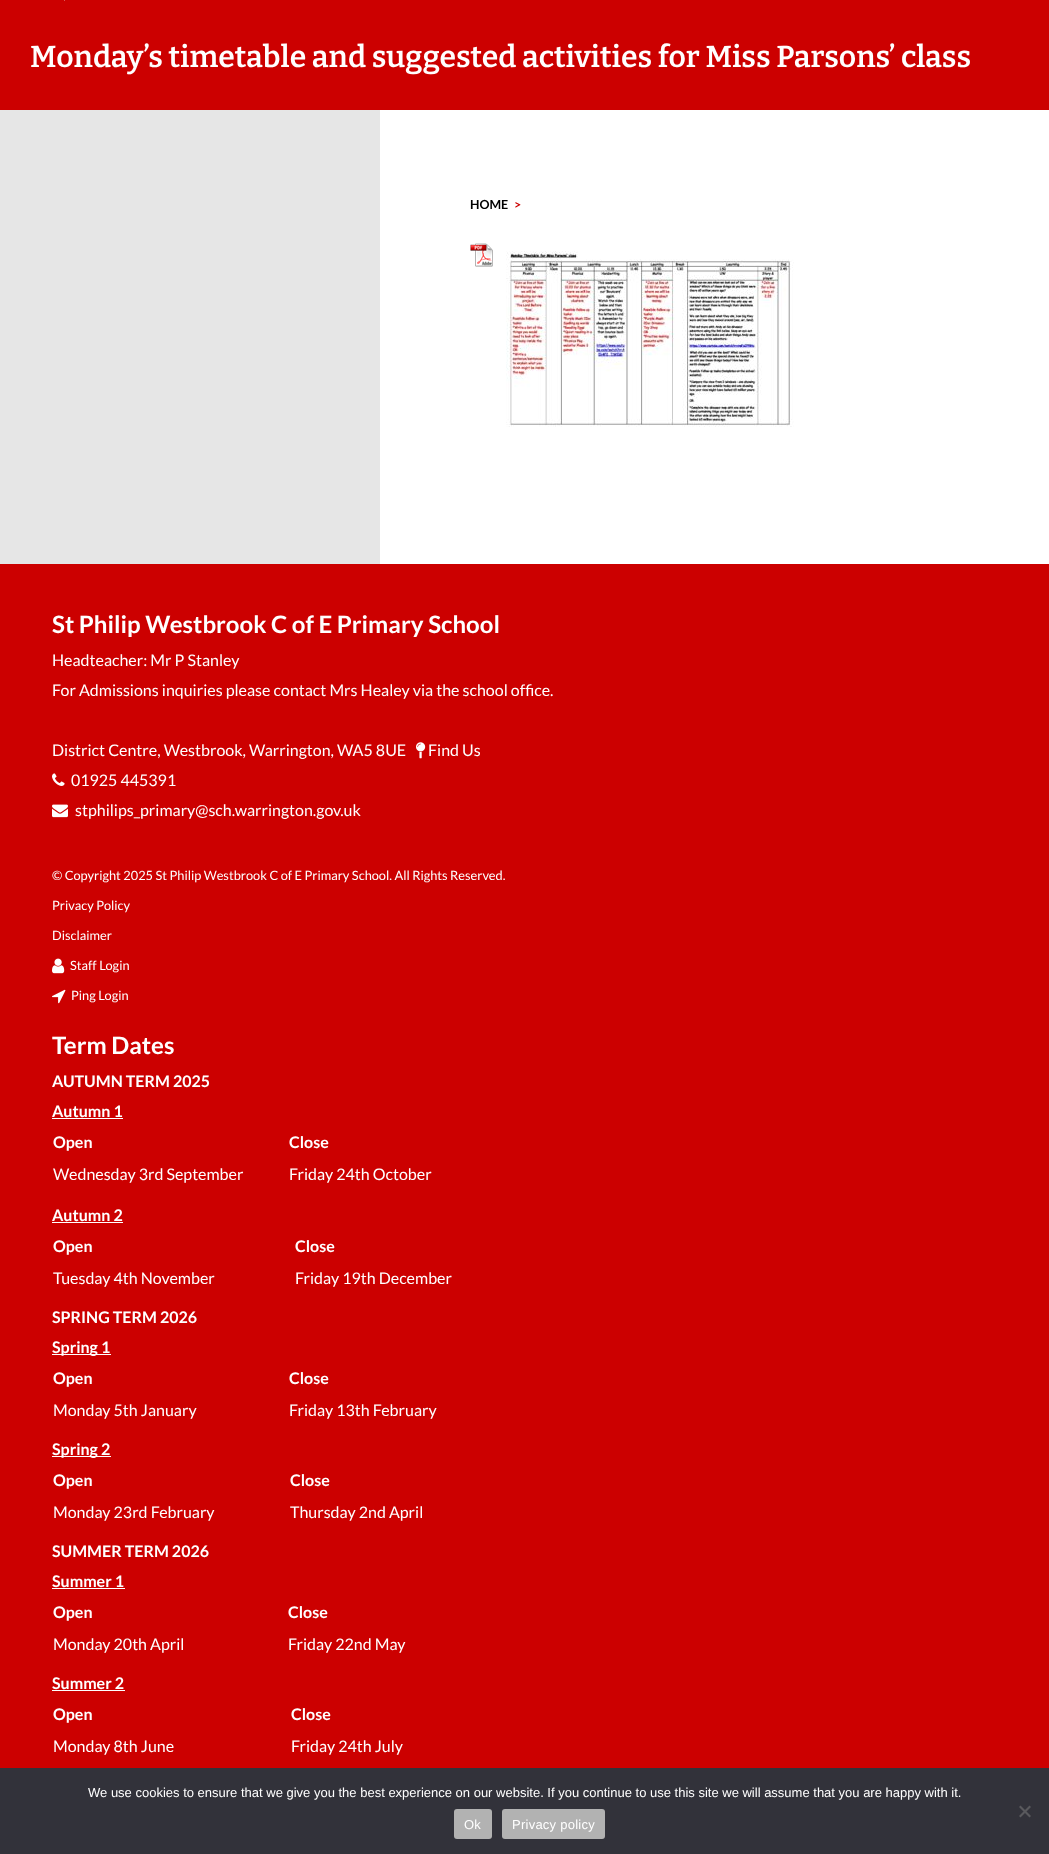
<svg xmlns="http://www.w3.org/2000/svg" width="1049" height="1854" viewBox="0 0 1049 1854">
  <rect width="100%" height="100%" fill="rgb(255,255,255)"/>
  <rect x="0" y="0" width="1049" height="110" fill="rgb(204,0,0)"/>
  <rect x="64" y="0" width="1" height="1" fill="rgb(220,82,82)"/>
  <text x="30" y="67" font-family="Bitter" font-size="30.2" font-weight="600" fill="rgb(255,255,255)">Monday’s timetable and suggested activities for Miss Parsons’ class</text>
  <rect x="0" y="110" width="380" height="454" fill="rgb(230,230,230)"/>
  <text x="470" y="209" font-family="Lato" font-size="12.5" font-weight="bold" fill="rgb(0,0,0)">HOME</text>
  <text x="514" y="209" font-family="Lato" font-size="12.5" font-weight="bold" fill="rgb(204,0,0)">&gt;</text>
  <image x="470" y="243" width="23" height="24" href="pic1.png"/>
  <image x="506" y="251" width="288" height="176" href="pic2.png"/>
  <rect x="0" y="564" width="1049" height="1204" fill="rgb(204,0,0)"/>
  <text x="52" y="633" font-family="Lato" font-size="24" font-weight="bold" fill="rgb(255,255,255)">St Philip Westbrook C of E Primary School</text>
  <g font-family="Lato" font-size="16" fill="rgb(255,255,255)">
    <text>
      <tspan x="52" y="666">Headteacher: Mr P Stanley</tspan>
      <tspan x="52" y="696">For Admissions inquiries please contact Mrs Healey via the school office.</tspan>
    </text>
    <text x="52" y="756">District Centre, Westbrook, Warrington, WA5 8UE</text>
  </g>
  <image x="416" y="742" width="10" height="17" href="pic3.png"/>
  <text x="428" y="756" font-family="Lato" font-size="16" fill="rgb(255,255,255)">Find Us</text>
  <image x="52" y="773" width="13" height="13" href="pic4.png"/>
  <text x="71" y="786" font-family="Lato" font-size="16" fill="rgb(255,255,255)">01925 445391</text>
  <image x="52" y="804" width="16" height="14" href="pic5.png"/>
  <text x="75" y="816" font-family="Lato" font-size="16" fill="rgb(255,255,255)">stphilips_primary@sch.warrington.gov.uk</text>
  <g font-family="Lato" font-size="12.8" fill="rgb(255,255,255)">
    <text x="52" y="880">© Copyright 2025 St Philip Westbrook C of E Primary School. All Rights Reserved.</text>
    <text x="52" y="910">Privacy Policy</text>
    <text x="52" y="940">Disclaimer</text>
  </g>
  <image x="52" y="958" width="13" height="16" href="pic6.png"/>
  <text x="70" y="970" font-family="Lato" font-size="12.8" fill="rgb(255,255,255)">Staff Login</text>
  <image x="52" y="989" width="14" height="15" href="pic7.png"/>
  <text x="71" y="1000" font-family="Lato" font-size="12.8" fill="rgb(255,255,255)">Ping Login</text>
  <text x="52" y="1054" font-family="Lato" font-size="24" font-weight="bold" fill="rgb(255,255,255)">Term Dates</text>
  <g font-family="Lato" font-size="16" font-weight="bold" fill="rgb(255,255,255)">
    <text>
      <tspan x="52" y="1087">AUTUMN TERM 2025</tspan>
      <tspan x="52" y="1117">Autumn 1</tspan>
    </text>
  </g>
  <rect x="52" y="1118" width="71" height="1" fill="rgb(255,255,255)"/>
  <g font-family="Lato" font-size="16" font-weight="bold" fill="rgb(255,255,255)">
    <text x="53" y="1148">Open</text>
    <text x="289" y="1148">Close</text>
  </g>
  <g font-family="Lato" font-size="16" fill="rgb(255,255,255)">
    <text x="53" y="1180">Wednesday 3rd September</text>
    <text x="289" y="1180">Friday 24th October</text>
  </g>
  <text x="52" y="1221" font-family="Lato" font-size="16" font-weight="bold" fill="rgb(255,255,255)">Autumn 2</text>
  <rect x="52" y="1222" width="71" height="1" fill="rgb(255,255,255)"/>
  <g font-family="Lato" font-size="16" font-weight="bold" fill="rgb(255,255,255)">
    <text x="53" y="1252">Open</text>
    <text x="295" y="1252">Close</text>
  </g>
  <g font-family="Lato" font-size="16" fill="rgb(255,255,255)">
    <text x="53" y="1284">Tuesday 4th November</text>
    <text x="295" y="1284">Friday 19th December</text>
  </g>
  <text x="52" y="1323" font-family="Lato" font-size="16" font-weight="bold" fill="rgb(255,255,255)">SPRING TERM 2026</text>
  <rect x="52" y="1354" width="59" height="1" fill="rgb(255,255,255)"/>
  <g font-family="Lato" font-size="16" font-weight="bold" fill="rgb(255,255,255)">
    <text x="52" y="1353">Spring 1</text>
    <text x="53" y="1384">Open</text>
    <text x="289" y="1384">Close</text>
  </g>
  <g font-family="Lato" font-size="16" fill="rgb(255,255,255)">
    <text x="53" y="1416">Monday 5th January</text>
    <text x="289" y="1416">Friday 13th February</text>
  </g>
  <rect x="52" y="1456" width="59" height="1" fill="rgb(255,255,255)"/>
  <g font-family="Lato" font-size="16" font-weight="bold" fill="rgb(255,255,255)">
    <text x="52" y="1455">Spring 2</text>
    <text x="53" y="1486">Open</text>
    <text x="290" y="1486">Close</text>
  </g>
  <g font-family="Lato" font-size="16" fill="rgb(255,255,255)">
    <text x="53" y="1518">Monday 23rd February</text>
    <text x="290" y="1518">Thursday 2nd April</text>
  </g>
  <g font-family="Lato" font-size="16" font-weight="bold" fill="rgb(255,255,255)">
    <text>
      <tspan x="52" y="1557">SUMMER TERM 2026</tspan>
      <tspan x="52" y="1587">Summer 1</tspan>
    </text>
  </g>
  <rect x="52" y="1588" width="73" height="1" fill="rgb(255,255,255)"/>
  <g font-family="Lato" font-size="16" font-weight="bold" fill="rgb(255,255,255)">
    <text x="53" y="1618">Open</text>
    <text x="288" y="1618">Close</text>
  </g>
  <g font-family="Lato" font-size="16" fill="rgb(255,255,255)">
    <text x="53" y="1650">Monday 20th April</text>
    <text x="288" y="1650">Friday 22nd May</text>
  </g>
  <text x="52" y="1689" font-family="Lato" font-size="16" font-weight="bold" fill="rgb(255,255,255)">Summer 2</text>
  <rect x="52" y="1690" width="73" height="1" fill="rgb(255,255,255)"/>
  <g font-family="Lato" font-size="16" font-weight="bold" fill="rgb(255,255,255)">
    <text x="53" y="1720">Open</text>
    <text x="291" y="1720">Close</text>
  </g>
  <g font-family="Lato" font-size="16" fill="rgb(255,255,255)">
    <text x="53" y="1752">Monday 8th June</text>
    <text x="291" y="1752">Friday 24th July</text>
  </g>
  <rect x="0" y="1768" width="1049" height="86" fill="rgb(50,50,58)"/>
  <text x="88" y="1797" font-family="Liberation Sans" font-size="13" fill="rgb(255,255,255)">We use cookies to ensure that we give you the best experience on our website. If you continue to use this site we will assume that you are happy with it.</text>
  <path d="M1029.5 1805.5L1031 1807L1020.5 1817.5L1019 1816Z" fill="rgb(89,89,93)"/>
  <path d="M1019 1807L1020.5 1805.5L1031 1816L1029.5 1817.5Z" fill="rgb(89,89,93)"/>
  <rect x="454" y="1809" width="38" height="30" rx="3" fill="rgb(178,178,178)"/>
  <text x="464" y="1829" font-family="Liberation Sans" font-size="13" letter-spacing="0.25" fill="rgb(255,255,255)">Ok</text>
  <rect x="502" y="1809" width="103" height="30" rx="3" fill="rgb(178,178,178)"/>
  <text x="512" y="1829" font-family="Liberation Sans" font-size="13" letter-spacing="0.25" fill="rgb(255,255,255)">Privacy policy</text>
</svg>
